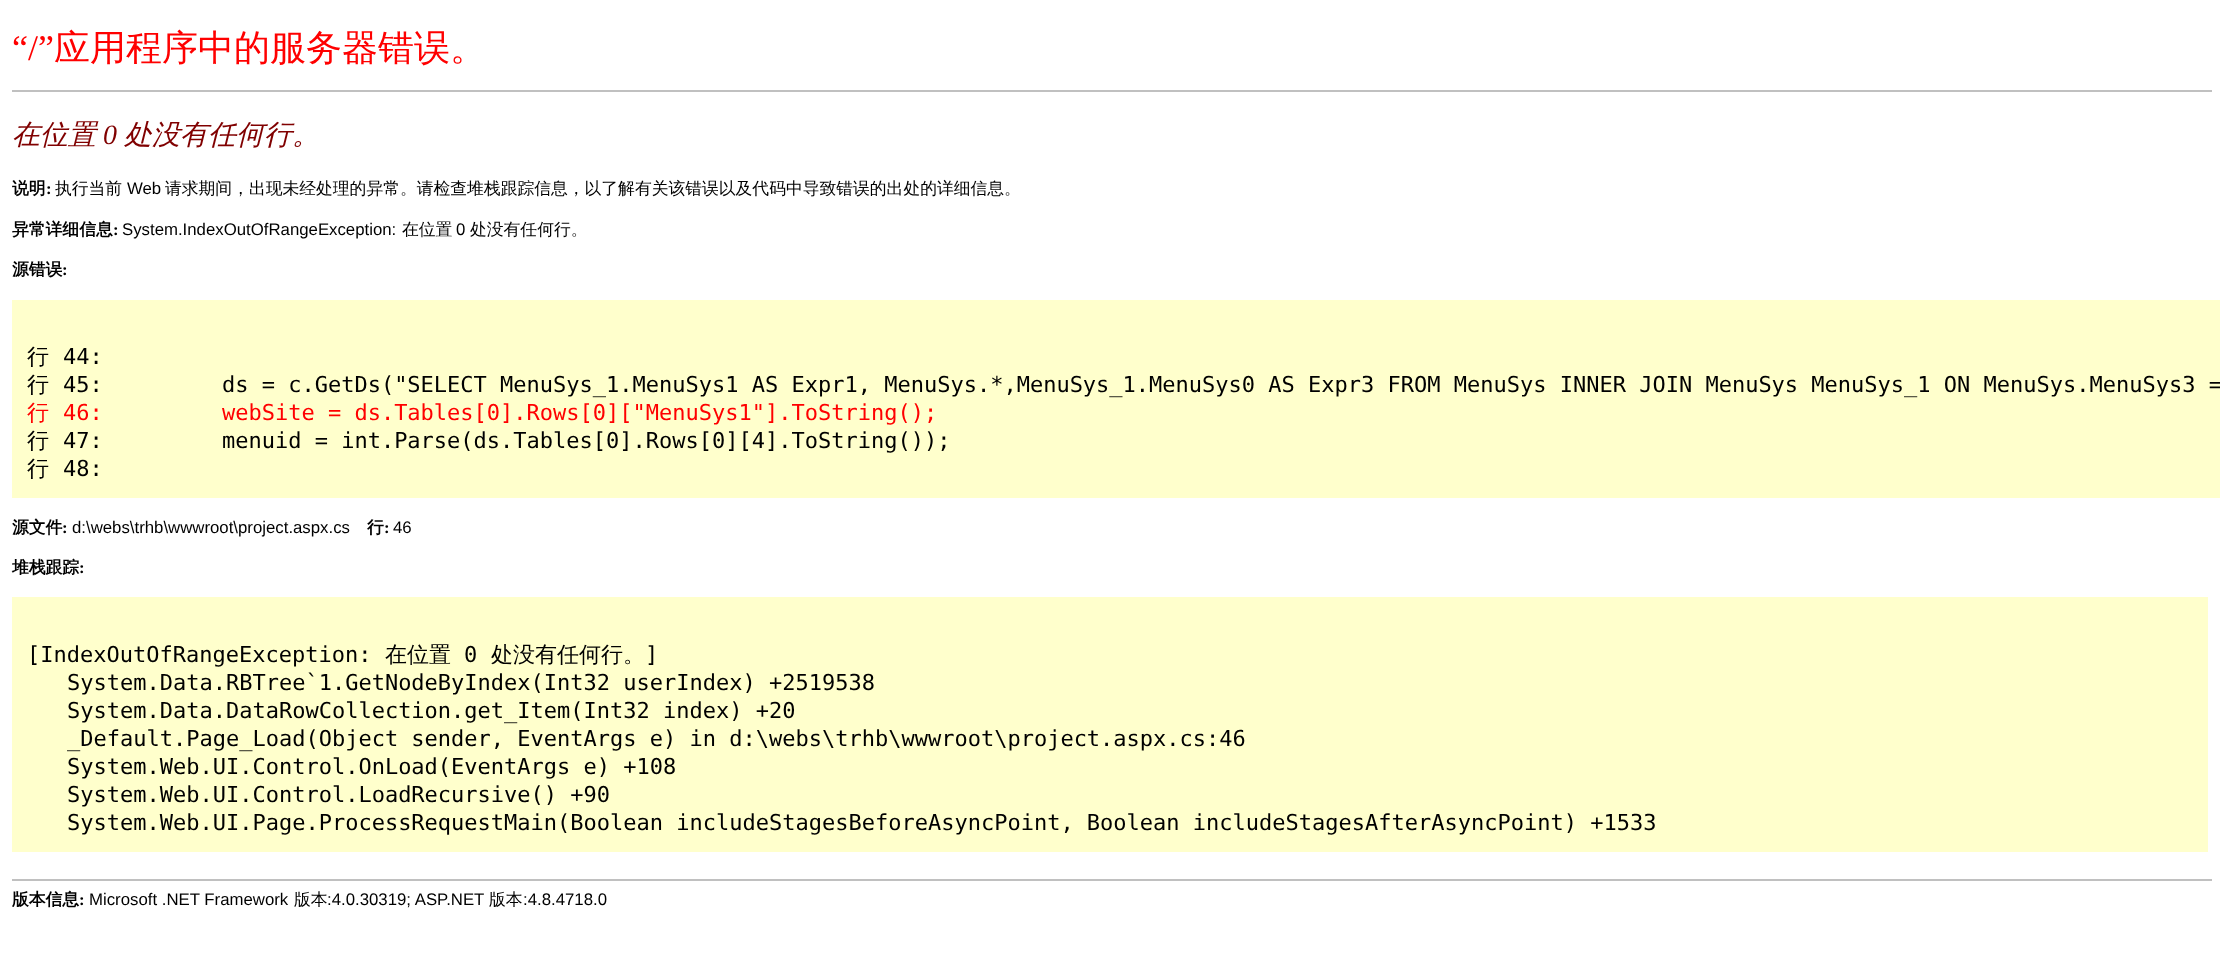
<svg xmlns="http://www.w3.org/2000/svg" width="2220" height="965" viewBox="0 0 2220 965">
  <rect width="100%" height="100%" fill="rgb(255,255,255)"/>
  <text x="12" y="60" font-family="Liberation Serif" font-size="36" fill="rgb(255,0,0)">“/”</text>
  <text x="54" y="60" font-family="WenQuanYi Zen Hei" font-size="36" font-weight="500" fill="rgb(255,0,0)">应用程序中的服务器错误。</text>
  <rect x="12" y="90" width="2200" height="2" fill="rgb(192,192,192)"/>
  <text x="12" y="144" font-family="WenQuanYi Zen Hei" font-size="28" font-weight="500" font-style="italic" fill="rgb(128,0,0)">在位置</text>
  <text x="103" y="144" font-family="Liberation Serif" font-size="28" font-style="italic" fill="rgb(128,0,0)">0</text>
  <text x="124" y="144" font-family="WenQuanYi Zen Hei" font-size="28" font-weight="500" font-style="italic" fill="rgb(128,0,0)">处没有任何行。</text>
  <text x="12" y="194" font-family="WenQuanYi Zen Hei" font-size="16.8" font-weight="bold" fill="rgb(0,0,0)">说明</text>
  <text x="46" y="194" font-family="Liberation Serif" font-size="16.8" font-weight="bold" fill="rgb(0,0,0)">:</text>
  <text x="55" y="194" font-family="WenQuanYi Zen Hei" font-size="16.8" font-weight="500" fill="rgb(0,0,0)">执行当前</text>
  <text x="127" y="194" font-family="Liberation Sans" font-size="16.8" fill="rgb(0,0,0)">Web</text>
  <text x="165" y="194" font-family="WenQuanYi Zen Hei" font-size="16.8" font-weight="500" fill="rgb(0,0,0)">请求期间，出现未经处理的异常。请检查堆栈跟踪信息，以了解有关该错误以及代码中导致错误的出处的详细信息。</text>
  <text x="12" y="235" font-family="WenQuanYi Zen Hei" font-size="16.8" font-weight="bold" fill="rgb(0,0,0)">异常详细信息</text>
  <text x="113" y="235" font-family="Liberation Serif" font-size="16.8" font-weight="bold" fill="rgb(0,0,0)">:</text>
  <text x="122" y="235" font-family="Liberation Sans" font-size="16.8" fill="rgb(0,0,0)">System.IndexOutOfRangeException:</text>
  <text x="402" y="235" font-family="WenQuanYi Zen Hei" font-size="16.8" font-weight="500" fill="rgb(0,0,0)">在位置</text>
  <text x="456" y="235" font-family="Liberation Sans" font-size="16.8" fill="rgb(0,0,0)">0</text>
  <text x="470" y="235" font-family="WenQuanYi Zen Hei" font-size="16.8" font-weight="500" fill="rgb(0,0,0)">处没有任何行。</text>
  <text x="12" y="275" font-family="WenQuanYi Zen Hei" font-size="16.8" font-weight="bold" fill="rgb(0,0,0)">源错误</text>
  <text x="62" y="275" font-family="Liberation Serif" font-size="16.8" font-weight="bold" fill="rgb(0,0,0)">:</text>
  <rect x="12" y="300" width="2208" height="198" fill="rgb(255,255,204)"/>
  <text x="27" y="364" font-family="WenQuanYi Zen Hei" font-size="22" font-weight="500" fill="rgb(0,0,0)">行</text>
  <text x="63" y="364" font-family="DejaVu Sans Mono" font-size="22" fill="rgb(0,0,0)">44:</text>
  <text x="27" y="392" font-family="WenQuanYi Zen Hei" font-size="22" font-weight="500" fill="rgb(0,0,0)">行</text>
  <text x="63" y="392" font-family="DejaVu Sans Mono" font-size="22" fill="rgb(0,0,0)" xml:space="preserve">45:         ds = c.GetDs("SELECT MenuSys_1.MenuSys1 AS Expr1, MenuSys.*,MenuSys_1.MenuSys0 AS Expr3 FROM MenuSys INNER JOIN MenuSys MenuSys_1 ON MenuSys.MenuSys3 =</text>
  <text x="27" y="420" font-family="WenQuanYi Zen Hei" font-size="22" font-weight="500" fill="rgb(255,0,0)">行</text>
  <text x="63" y="420" font-family="DejaVu Sans Mono" font-size="22" fill="rgb(255,0,0)" xml:space="preserve">46:         webSite = ds.Tables[0].Rows[0]["MenuSys1"].ToString();</text>
  <text x="27" y="448" font-family="WenQuanYi Zen Hei" font-size="22" font-weight="500" fill="rgb(0,0,0)">行</text>
  <text x="63" y="448" font-family="DejaVu Sans Mono" font-size="22" fill="rgb(0,0,0)" xml:space="preserve">47:         menuid = int.Parse(ds.Tables[0].Rows[0][4].ToString());</text>
  <text x="27" y="476" font-family="WenQuanYi Zen Hei" font-size="22" font-weight="500" fill="rgb(0,0,0)">行</text>
  <text x="63" y="476" font-family="DejaVu Sans Mono" font-size="22" fill="rgb(0,0,0)">48:</text>
  <text x="12" y="533" font-family="WenQuanYi Zen Hei" font-size="16.8" font-weight="bold" fill="rgb(0,0,0)">源文件</text>
  <text x="62" y="533" font-family="Liberation Serif" font-size="16.8" font-weight="bold" fill="rgb(0,0,0)">:</text>
  <text x="72" y="533" font-family="Liberation Sans" font-size="16.8" fill="rgb(0,0,0)">d:\webs\trhb\wwwroot\project.aspx.cs</text>
  <text x="367" y="533" font-family="WenQuanYi Zen Hei" font-size="16.8" font-weight="bold" fill="rgb(0,0,0)">行</text>
  <text x="384" y="533" font-family="Liberation Serif" font-size="16.8" font-weight="bold" fill="rgb(0,0,0)">:</text>
  <text x="393" y="533" font-family="Liberation Sans" font-size="16.8" fill="rgb(0,0,0)">46</text>
  <text x="12" y="573" font-family="WenQuanYi Zen Hei" font-size="16.8" font-weight="bold" fill="rgb(0,0,0)">堆栈跟踪</text>
  <text x="79" y="573" font-family="Liberation Serif" font-size="16.8" font-weight="bold" fill="rgb(0,0,0)">:</text>
  <rect x="12" y="597" width="2196" height="255" fill="rgb(255,255,204)"/>
  <text x="27" y="662" font-family="DejaVu Sans Mono" font-size="22" fill="rgb(0,0,0)">[IndexOutOfRangeException:</text>
  <text x="385" y="662" font-family="WenQuanYi Zen Hei" font-size="22" font-weight="500" fill="rgb(0,0,0)">在位置</text>
  <text x="464" y="662" font-family="DejaVu Sans Mono" font-size="22" fill="rgb(0,0,0)">0</text>
  <text x="491" y="662" font-family="WenQuanYi Zen Hei" font-size="22" font-weight="500" fill="rgb(0,0,0)">处没有任何行。</text>
  <g font-family="DejaVu Sans Mono" font-size="22" fill="rgb(0,0,0)">
    <text x="645" y="662">]</text>
    <text>
      <tspan x="67" y="690">System.Data.RBTree`1.GetNodeByIndex(Int32 userIndex) +2519538</tspan>
      <tspan x="67" y="718">System.Data.DataRowCollection.get_Item(Int32 index) +20</tspan>
      <tspan x="67" y="746">_Default.Page_Load(Object sender, EventArgs e) in d:\webs\trhb\wwwroot\project.aspx.cs:46</tspan>
      <tspan x="67" y="774">System.Web.UI.Control.OnLoad(EventArgs e) +108</tspan>
      <tspan x="67" y="802">System.Web.UI.Control.LoadRecursive() +90</tspan>
      <tspan x="67" y="830">System.Web.UI.Page.ProcessRequestMain(Boolean includeStagesBeforeAsyncPoint, Boolean includeStagesAfterAsyncPoint) +1533</tspan>
    </text>
  </g>
  <rect x="12" y="879" width="2200" height="2" fill="rgb(192,192,192)"/>
  <text x="12" y="905" font-family="WenQuanYi Zen Hei" font-size="16.8" font-weight="bold" fill="rgb(0,0,0)">版本信息</text>
  <text x="79" y="905" font-family="Liberation Serif" font-size="16.8" font-weight="bold" fill="rgb(0,0,0)">:</text>
  <text x="89" y="905" font-family="Liberation Sans" font-size="16.8" fill="rgb(0,0,0)">Microsoft .NET Framework</text>
  <text x="294" y="905" font-family="WenQuanYi Zen Hei" font-size="16.8" font-weight="500" fill="rgb(0,0,0)">版本</text>
  <text x="327" y="905" font-family="Liberation Sans" font-size="16.8" fill="rgb(0,0,0)">:4.0.30319; ASP.NET</text>
  <text x="489" y="905" font-family="WenQuanYi Zen Hei" font-size="16.8" font-weight="500" fill="rgb(0,0,0)">版本</text>
  <text x="523" y="905" font-family="Liberation Sans" font-size="16.8" fill="rgb(0,0,0)">:4.8.4718.0</text>
</svg>
